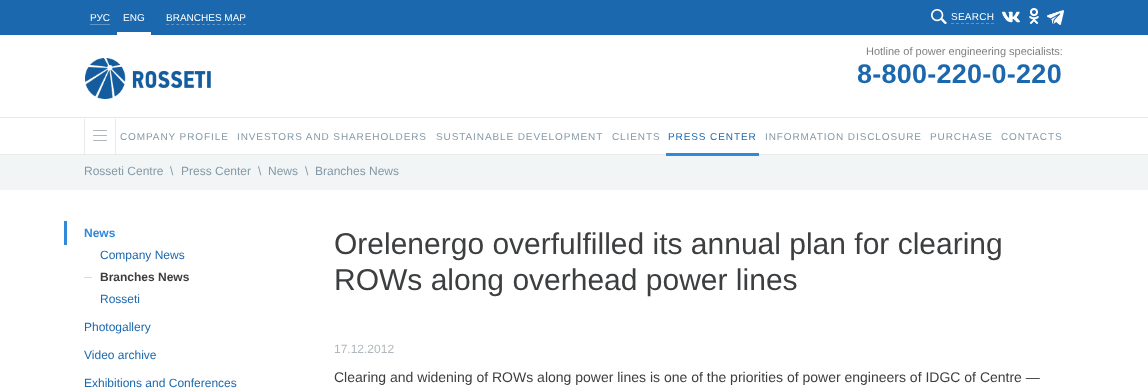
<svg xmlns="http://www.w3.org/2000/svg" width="1148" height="392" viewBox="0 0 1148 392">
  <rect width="100%" height="100%" fill="rgb(255,255,255)"/>
  <rect x="0" y="0" width="1148" height="35" fill="rgb(27,104,174)"/>
  <rect x="90" y="24" width="20" height="1" fill="rgb(95,149,198)"/>
  <text x="90" y="21" font-family="Liberation Sans" font-size="10" fill="rgb(255,255,255)">РУС</text>
  <rect x="117" y="32" width="34" height="3" fill="rgb(255,255,255)"/>
  <text x="123" y="21" font-family="Liberation Sans" font-size="10" fill="rgb(255,255,255)">ENG</text>
  <path d="M166 24.5H246" fill="none" stroke="rgb(95,149,198)" stroke-dasharray="3 2.13"/>
  <text x="166" y="21" font-family="Liberation Sans" font-size="10" fill="rgb(255,255,255)">BRANCHES MAP</text>
  <image x="931" y="9" width="16" height="15" href="pic1.png"/>
  <path d="M951 23.5H994" fill="none" stroke="rgb(95,149,198)" stroke-dasharray="3 2"/>
  <text x="951" y="20" font-family="Liberation Sans" font-size="10" letter-spacing="0.25" fill="rgb(255,255,255)">SEARCH</text>
  <image x="1002" y="11" width="18" height="12" href="pic2.png"/>
  <image x="1029" y="8" width="10" height="16" href="pic3.png"/>
  <image x="1047" y="10" width="17" height="15" href="pic4.png"/>
  <rect x="0" y="117" width="1148" height="1" fill="rgb(233,233,233)"/>
  <image x="85" y="58" width="126" height="41" href="pic5.png"/>
  <text x="866" y="55" font-family="Liberation Sans" font-size="11" fill="rgb(128,127,131)">Hotline of power engineering specialists:</text>
  <text x="857" y="83" font-family="Liberation Sans" font-size="27" font-weight="bold" letter-spacing="0.25" fill="rgb(27,104,174)">8-800-220-0-220</text>
  <rect x="0" y="154" width="1148" height="1" fill="rgb(233,233,233)"/>
  <path d="M116 118V154H115V119ZM84 154V118L85 119V154Z" fill="rgb(233,233,233)"/>
  <rect x="93" y="135" width="14" height="1" rx="0.5" fill="rgb(176,183,188)"/>
  <rect x="93" y="130" width="14" height="1" rx="0.5" fill="rgb(176,183,188)"/>
  <rect x="93" y="140" width="14" height="1" rx="0.5" fill="rgb(176,183,188)"/>
  <g font-family="Liberation Sans" font-size="10" letter-spacing="0.9" fill="rgb(132,153,167)">
    <text x="120" y="140">COMPANY PROFILE</text>
    <text x="237" y="140">INVESTORS AND SHAREHOLDERS</text>
    <text x="436" y="140">SUSTAINABLE DEVELOPMENT</text>
    <text x="612" y="140">CLIENTS</text>
  </g>
  <text x="668" y="140" font-family="Liberation Sans" font-size="10" letter-spacing="0.9" fill="rgb(27,104,174)">PRESS CENTER</text>
  <rect x="0" y="155" width="1148" height="35" fill="rgb(242,245,246)"/>
  <rect x="666" y="153" width="93" height="3" fill="rgb(49,137,218)"/>
  <g font-family="Liberation Sans" font-size="10" letter-spacing="0.9" fill="rgb(132,153,167)">
    <text x="765" y="140">INFORMATION DISCLOSURE</text>
    <text x="930" y="140">PURCHASE</text>
    <text x="1001" y="140">CONTACTS</text>
  </g>
  <g font-family="Liberation Sans" font-size="12" fill="rgb(132,153,167)">
    <text x="84" y="175">Rosseti Centre</text>
    <text x="170" y="175">\</text>
    <text x="181" y="175">Press Center</text>
    <text x="258" y="175">\</text>
    <text x="268" y="175">News</text>
    <text x="305" y="175">\</text>
    <text x="315" y="175">Branches News</text>
  </g>
  <rect x="64" y="221" width="3" height="24" fill="rgb(49,137,218)"/>
  <text x="84" y="237" font-family="Liberation Sans" font-size="12" font-weight="bold" fill="rgb(49,137,218)">News</text>
  <text x="100" y="259" font-family="Liberation Sans" font-size="12" fill="rgb(27,104,174)">Company News</text>
  <rect x="84" y="277" width="8" height="1" fill="rgb(218,218,220)"/>
  <text x="100" y="281" font-family="Liberation Sans" font-size="12" font-weight="bold" fill="rgb(60,62,64)">Branches News</text>
  <g font-family="Liberation Sans" font-size="12" fill="rgb(27,104,174)">
    <text x="100" y="303">Rosseti</text>
    <text x="84" y="331">Photogallery</text>
    <text x="84" y="359">Video archive</text>
    <text x="84" y="387">Exhibitions and Conferences</text>
  </g>
  <g font-family="Liberation Sans" font-size="30" fill="rgb(60,62,64)">
    <text>
      <tspan x="334" y="254">Orelenergo overfulfilled its annual plan for clearing</tspan>
      <tspan x="334" y="290">ROWs along overhead power lines</tspan>
    </text>
  </g>
  <text x="334" y="353" font-family="Liberation Sans" font-size="12" fill="rgb(176,183,188)">17.12.2012</text>
  <text x="334" y="382" font-family="Liberation Sans" font-size="14" fill="rgb(60,62,64)">Clearing and widening of ROWs along power lines is one of the priorities of power engineers of IDGC of Centre —</text>
</svg>
